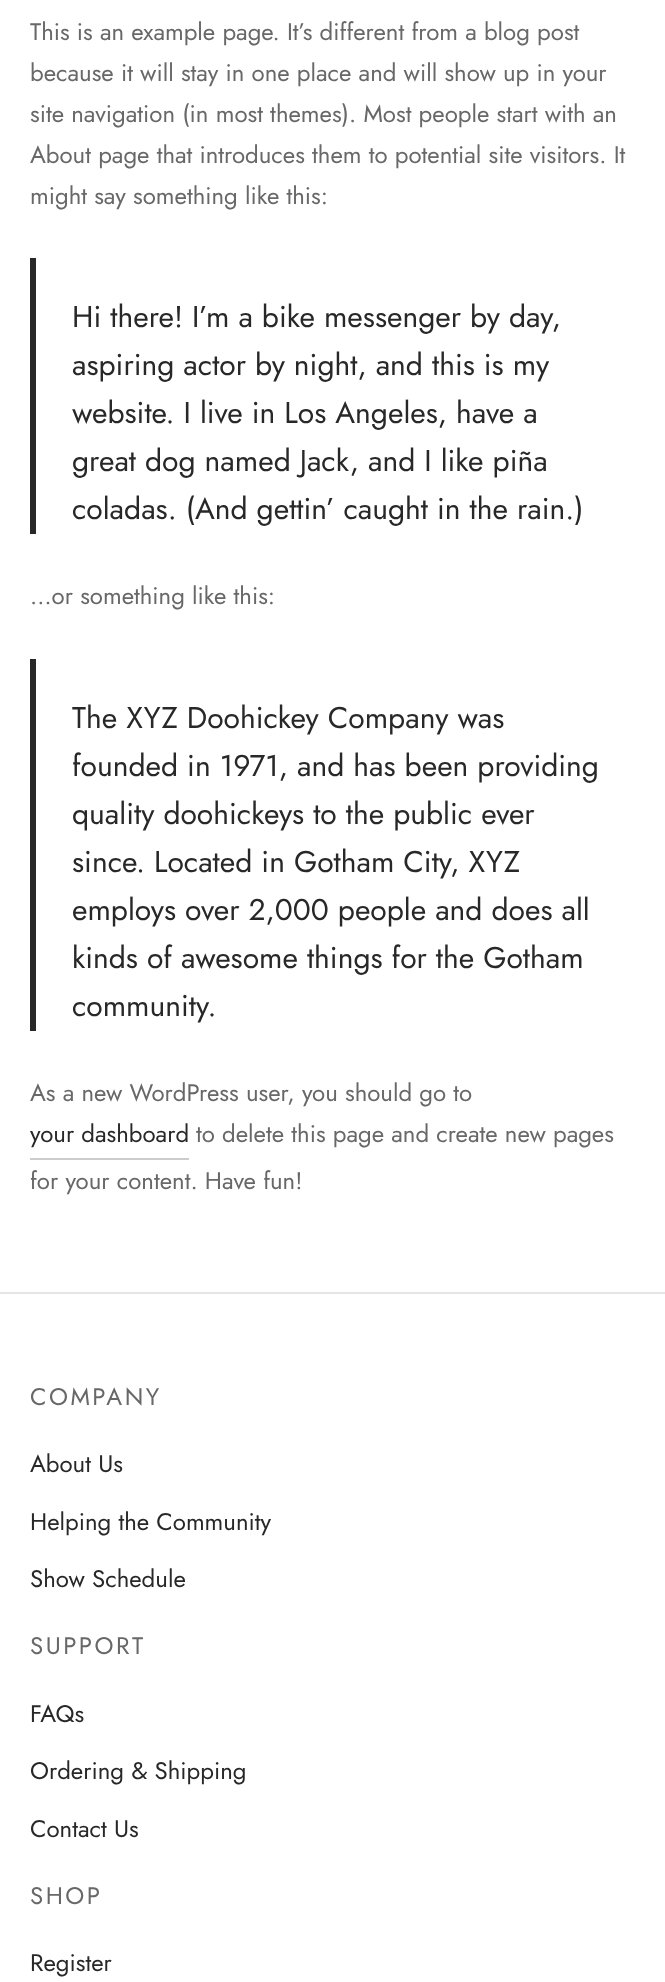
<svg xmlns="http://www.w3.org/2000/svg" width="665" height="1982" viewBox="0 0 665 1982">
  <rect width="100%" height="100%" fill="rgb(255,255,255)"/>
  <g font-family="Jost" font-size="24" fill="rgb(104,104,104)">
    <text>
      <tspan x="30" y="40">This is an example page. It’s different from a blog post</tspan>
      <tspan x="30" y="81">because it will stay in one place and will show up in your</tspan>
      <tspan x="30" y="122">site navigation (in most themes). Most people start with an</tspan>
      <tspan x="30" y="163">About page that introduces them to potential site visitors. It</tspan>
      <tspan x="30" y="204">might say something like this:</tspan>
    </text>
  </g>
  <rect x="30" y="258" width="6" height="276" fill="rgb(40,40,40)"/>
  <g font-family="Jost" font-size="30" fill="rgb(40,40,40)">
    <text>
      <tspan x="72" y="327">Hi there! I’m a bike messenger by day,</tspan>
      <tspan x="72" y="375">aspiring actor by night, and this is my</tspan>
      <tspan x="72" y="423">website. I live in Los Angeles, have a</tspan>
      <tspan x="72" y="471">great dog named Jack, and I like piña</tspan>
      <tspan x="72" y="519">coladas. (And gettin’ caught in the rain.)</tspan>
    </text>
  </g>
  <text x="30" y="604" font-family="Jost" font-size="24" fill="rgb(104,104,104)">…or something like this:</text>
  <rect x="30" y="659" width="6" height="372" fill="rgb(40,40,40)"/>
  <g font-family="Jost" font-size="30" fill="rgb(40,40,40)">
    <text>
      <tspan x="72" y="728">The XYZ Doohickey Company was</tspan>
      <tspan x="72" y="776">founded in 1971, and has been providing</tspan>
      <tspan x="72" y="824">quality doohickeys to the public ever</tspan>
      <tspan x="72" y="872">since. Located in Gotham City, XYZ</tspan>
      <tspan x="72" y="920">employs over 2,000 people and does all</tspan>
      <tspan x="72" y="968">kinds of awesome things for the Gotham</tspan>
      <tspan x="72" y="1016">community.</tspan>
    </text>
  </g>
  <text x="30" y="1101" font-family="Jost" font-size="24" fill="rgb(104,104,104)">As a new WordPress user, you should go to</text>
  <rect x="30" y="1158" width="159" height="2" fill="rgb(204,204,204)"/>
  <text x="30" y="1142" font-family="Jost" font-size="24" fill="rgb(40,40,40)">your dashboard</text>
  <g font-family="Jost" font-size="24" fill="rgb(104,104,104)">
    <text x="196" y="1142">to delete this page and create new pages</text>
    <text x="30" y="1189">for your content. Have fun!</text>
  </g>
  <rect x="0" y="1292" width="665" height="2" fill="rgb(230,230,230)"/>
  <text x="30" y="1405" font-family="Jost" font-size="24" letter-spacing="2.5" fill="rgb(104,104,104)">COMPANY</text>
  <g font-family="Jost" font-size="24" fill="rgb(40,40,40)">
    <text x="30" y="1472">About Us</text>
    <text x="30" y="1530">Helping the Community</text>
    <text x="30" y="1587">Show Schedule</text>
  </g>
  <text x="30" y="1654" font-family="Jost" font-size="24" letter-spacing="2.5" fill="rgb(104,104,104)">SUPPORT</text>
  <g font-family="Jost" font-size="24" fill="rgb(40,40,40)">
    <text x="30" y="1722">FAQs</text>
    <text x="30" y="1779">Ordering &amp; Shipping</text>
    <text x="30" y="1837">Contact Us</text>
  </g>
  <text x="30" y="1904" font-family="Jost" font-size="24" letter-spacing="2.5" fill="rgb(104,104,104)">SHOP</text>
  <text x="30" y="1971" font-family="Jost" font-size="24" fill="rgb(40,40,40)">Register</text>
</svg>
